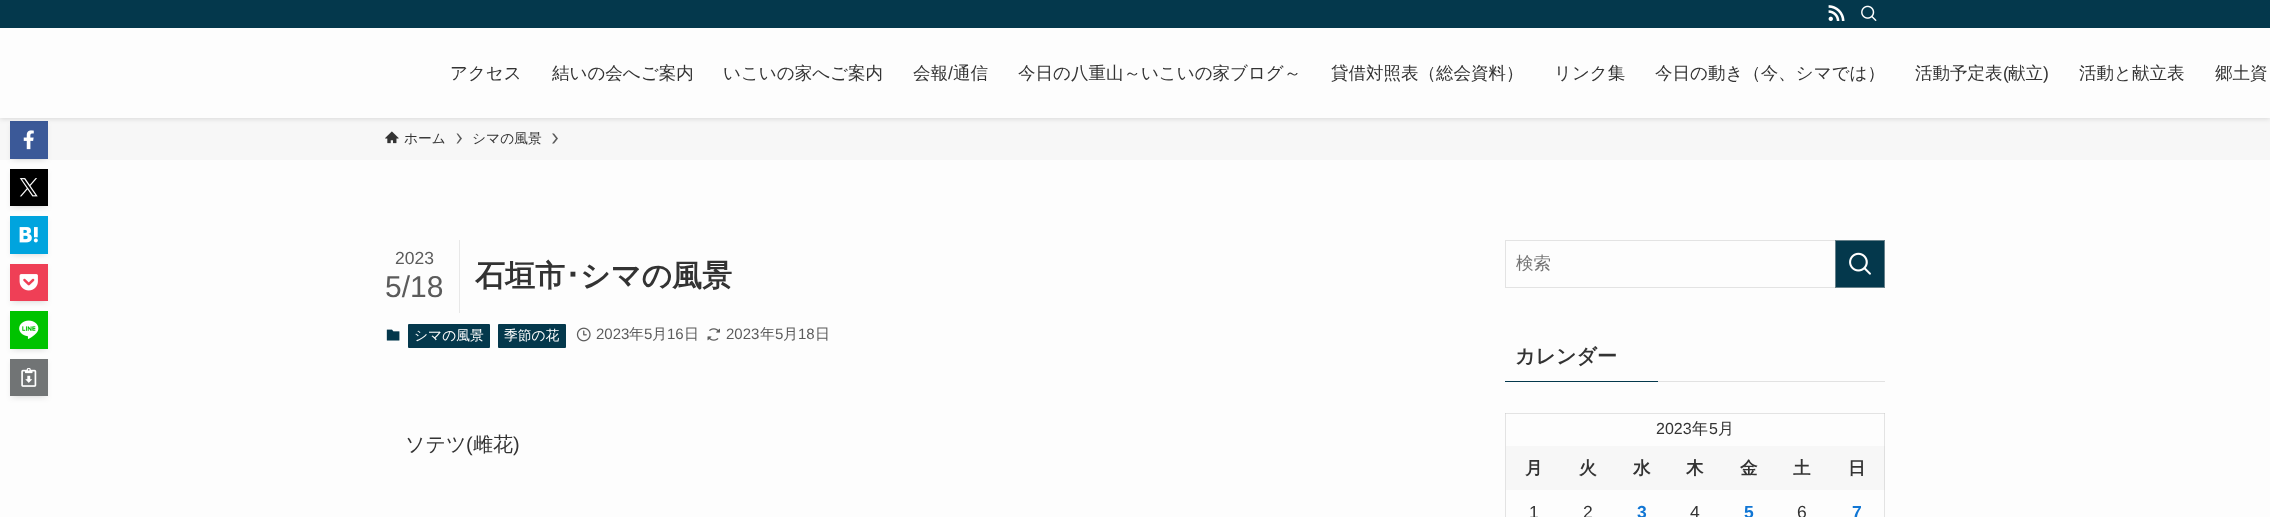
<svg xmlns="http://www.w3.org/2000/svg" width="2270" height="517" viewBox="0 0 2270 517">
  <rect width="100%" height="100%" fill="rgb(253,253,253)"/>
  <rect x="0" y="118" width="2270" height="42" fill="rgb(247,247,247)"/>
  <rect x="15" y="131" width="28" height="28" fill="rgba(0,0,0,0.1)" filter="blur(2.5px)"/>
  <rect x="10" y="124" width="38" height="37" fill="rgba(0,0,0,0.05)" filter="blur(2.5px)"/>
  <rect x="10" y="121" width="38" height="38" fill="rgb(59,89,152)"/>
  <rect x="0" y="1" width="2270" height="118" fill="rgba(0,0,0,0.12)" filter="blur(2.5px)"/>
  <rect x="0" y="28" width="2270" height="90" fill="rgb(253,253,253)"/>
  <rect x="0" y="0" width="2270" height="28" fill="rgb(4,56,76)"/>
  <image x="1828" y="5" width="17" height="16" href="pic1.png"/>
  <image x="1861" y="5" width="16" height="16" href="pic2.png"/>
  <g font-family="WenQuanYi Zen Hei" font-size="17.5" font-weight="500" fill="rgb(51,51,51)">
    <text x="450" y="79">アクセス</text>
    <text x="552" y="79">結いの会へご案内</text>
    <text x="723" y="79">いこいの家へご案内</text>
    <text x="913" y="79">会報</text>
  </g>
  <text x="948" y="79" font-family="Liberation Sans" font-size="17.5" fill="rgb(51,51,51)">/</text>
  <g font-family="WenQuanYi Zen Hei" font-size="17.5" font-weight="500" fill="rgb(51,51,51)">
    <text x="953" y="79">通信</text>
    <text x="1018" y="79">今日の八重山～いこいの家ブログ～</text>
    <text x="1331" y="79">貸借対照表（総会資料）</text>
    <text x="1554" y="79">リンク集</text>
    <text x="1655" y="79">今日の動き（今、シマでは）</text>
    <text x="1915" y="79">活動予定表</text>
  </g>
  <text x="2003" y="79" font-family="Liberation Sans" font-size="17.5" fill="rgb(51,51,51)">(</text>
  <text x="2008" y="79" font-family="WenQuanYi Zen Hei" font-size="17.5" font-weight="500" fill="rgb(51,51,51)">献立</text>
  <text x="2043" y="79" font-family="Liberation Sans" font-size="17.5" fill="rgb(51,51,51)">)</text>
  <g font-family="WenQuanYi Zen Hei" font-size="17.5" font-weight="500" fill="rgb(51,51,51)">
    <text x="2079" y="79">活動と献立表</text>
    <text x="2215" y="79">郷土資</text>
  </g>
  <image x="385" y="131" width="14" height="13" href="pic3.png"/>
  <text x="404" y="143" font-family="WenQuanYi Zen Hei" font-size="13.75" font-weight="500" fill="rgb(51,51,51)">ホーム</text>
  <path d="M458 133.5H456.5L460 138.5L456.5 143.5H458L462 138.5Z" fill="rgb(90,90,90)"/>
  <text x="472" y="143" font-family="WenQuanYi Zen Hei" font-size="13.75" font-weight="500" fill="rgb(51,51,51)">シマの風景</text>
  <path d="M554 133.5H552L556 138.5L552 143.5H554L558 138.5Z" fill="rgb(90,90,90)"/>
  <image x="23" y="130" width="11" height="20" href="pic4.png"/>
  <rect x="15" y="179" width="28" height="27" fill="rgba(0,0,0,0.1)" filter="blur(2.5px)"/>
  <rect x="10" y="171" width="38" height="38" fill="rgba(0,0,0,0.05)" filter="blur(2.5px)"/>
  <rect x="10" y="169" width="38" height="37" fill="rgb(0,0,0)"/>
  <image x="19" y="178" width="19" height="19" href="pic5.png"/>
  <rect x="15" y="226" width="28" height="28" fill="rgba(0,0,0,0.1)" filter="blur(2.5px)"/>
  <rect x="10" y="219" width="38" height="37" fill="rgba(0,0,0,0.05)" filter="blur(2.5px)"/>
  <rect x="10" y="216" width="38" height="38" fill="rgb(0,164,222)"/>
  <image x="19" y="227" width="19" height="16" href="pic6.png"/>
  <rect x="15" y="274" width="28" height="27" fill="rgba(0,0,0,0.1)" filter="blur(2.5px)"/>
  <rect x="10" y="266" width="38" height="38" fill="rgba(0,0,0,0.05)" filter="blur(2.5px)"/>
  <rect x="10" y="264" width="38" height="37" fill="rgb(239,63,86)"/>
  <image x="19" y="274" width="19" height="17" href="pic7.png"/>
  <rect x="15" y="321" width="28" height="28" fill="rgba(0,0,0,0.1)" filter="blur(2.5px)"/>
  <rect x="10" y="314" width="38" height="37" fill="rgba(0,0,0,0.05)" filter="blur(2.5px)"/>
  <rect x="10" y="311" width="38" height="38" fill="rgb(0,195,0)"/>
  <image x="19" y="320" width="20" height="19" href="pic8.png"/>
  <rect x="15" y="369" width="28" height="27" fill="rgba(0,0,0,0.1)" filter="blur(2.5px)"/>
  <rect x="10" y="361" width="38" height="38" fill="rgba(0,0,0,0.05)" filter="blur(2.5px)"/>
  <rect x="10" y="359" width="38" height="37" fill="rgb(113,116,117)"/>
  <image x="21" y="368" width="16" height="19" href="pic9.png"/>
  <rect x="459" y="240" width="1" height="73" fill="rgb(232,232,232)"/>
  <text x="395" y="264" font-family="Liberation Sans" font-size="17.5" fill="rgb(91,91,91)">2023</text>
  <text x="385" y="297" font-family="Liberation Sans" font-size="30" fill="rgb(91,91,91)">5/18</text>
  <text x="475" y="286" font-family="WenQuanYi Zen Hei" font-size="30" font-weight="bold" fill="rgb(51,51,51)">石垣市</text>
  <text x="565" y="286" font-family="IPAPGothic" font-size="30" font-weight="bold" fill="rgb(51,51,51)">･</text>
  <text x="580" y="286" font-family="WenQuanYi Zen Hei" font-size="30" font-weight="bold" fill="rgb(51,51,51)">シマの風景</text>
  <image x="386" y="329" width="14" height="12" href="pic10.png"/>
  <rect x="408" y="324" width="82" height="24" rx="1" fill="rgb(4,56,76)"/>
  <text x="414" y="340" font-family="WenQuanYi Zen Hei" font-size="13.75" font-weight="500" fill="rgb(255,255,255)">シマの風景</text>
  <rect x="498" y="324" width="68" height="24" rx="1" fill="rgb(4,56,76)"/>
  <text x="504" y="340" font-family="WenQuanYi Zen Hei" font-size="13.75" font-weight="500" fill="rgb(255,255,255)">季節の花</text>
  <image x="576" y="327" width="15" height="15" href="pic11.png"/>
  <text x="596" y="339" font-family="Liberation Sans" font-size="15" fill="rgb(91,91,91)">2023</text>
  <text x="629" y="339" font-family="WenQuanYi Zen Hei" font-size="15" font-weight="500" fill="rgb(91,91,91)">年</text>
  <text x="644" y="339" font-family="Liberation Sans" font-size="15" fill="rgb(91,91,91)">5</text>
  <text x="652" y="339" font-family="WenQuanYi Zen Hei" font-size="15" font-weight="500" fill="rgb(91,91,91)">月</text>
  <text x="667" y="339" font-family="Liberation Sans" font-size="15" fill="rgb(91,91,91)">16</text>
  <text x="684" y="339" font-family="WenQuanYi Zen Hei" font-size="15" font-weight="500" fill="rgb(91,91,91)">日</text>
  <image x="707" y="328" width="13" height="13" href="pic12.png"/>
  <text x="726" y="339" font-family="Liberation Sans" font-size="15" fill="rgb(91,91,91)">2023</text>
  <text x="760" y="339" font-family="WenQuanYi Zen Hei" font-size="15" font-weight="500" fill="rgb(91,91,91)">年</text>
  <text x="775" y="339" font-family="Liberation Sans" font-size="15" fill="rgb(91,91,91)">5</text>
  <text x="783" y="339" font-family="WenQuanYi Zen Hei" font-size="15" font-weight="500" fill="rgb(91,91,91)">月</text>
  <text x="798" y="339" font-family="Liberation Sans" font-size="15" fill="rgb(91,91,91)">18</text>
  <text x="815" y="339" font-family="WenQuanYi Zen Hei" font-size="15" font-weight="500" fill="rgb(91,91,91)">日</text>
  <text x="405" y="451" font-family="WenQuanYi Zen Hei" font-size="20" font-weight="500" fill="rgb(51,51,51)">ソテツ</text>
  <text x="466" y="451" font-family="Liberation Sans" font-size="20" fill="rgb(51,51,51)">(</text>
  <text x="473" y="451" font-family="WenQuanYi Zen Hei" font-size="20" font-weight="500" fill="rgb(51,51,51)">雌花</text>
  <text x="513" y="451" font-family="Liberation Sans" font-size="20" fill="rgb(51,51,51)">)</text>
  <rect x="1505.5" y="240.5" width="379" height="47" fill="none" stroke="rgb(227,227,227)"/>
  <text x="1516" y="269" font-family="WenQuanYi Zen Hei" font-size="17.5" font-weight="500" fill="rgb(117,117,117)">検索</text>
  <rect x="1835.5" y="240.5" width="49" height="47" fill="rgb(4,56,76)" stroke="rgb(102,128,138)"/>
  <image x="1849" y="252" width="22" height="23" href="pic13.png"/>
  <text x="1515" y="363" font-family="WenQuanYi Zen Hei" font-size="20" font-weight="bold" fill="rgb(51,51,51)">カレンダー</text>
  <rect x="1505" y="381" width="153" height="1" fill="rgb(4,56,76)"/>
  <rect x="1658" y="381" width="227" height="1" fill="rgb(226,226,226)"/>
  <rect x="1505" y="413" width="1" height="104" fill="rgb(227,227,227)"/>
  <rect x="1884" y="413" width="1" height="104" fill="rgb(227,227,227)"/>
  <rect x="1505" y="413" width="380" height="1" fill="rgb(227,227,227)"/>
  <rect x="1505" y="413" width="1" height="1" fill="rgb(213,213,213)"/>
  <rect x="1884" y="413" width="1" height="1" fill="rgb(213,213,213)"/>
  <text x="1656" y="434" font-family="Liberation Sans" font-size="16" fill="rgb(51,51,51)">2023</text>
  <text x="1692" y="434" font-family="WenQuanYi Zen Hei" font-size="16" font-weight="500" fill="rgb(51,51,51)">年</text>
  <text x="1709" y="434" font-family="Liberation Sans" font-size="16" fill="rgb(51,51,51)">5</text>
  <text x="1718" y="434" font-family="WenQuanYi Zen Hei" font-size="16" font-weight="500" fill="rgb(51,51,51)">月</text>
  <rect x="1506" y="446" width="378" height="44" fill="rgb(247,247,247)"/>
  <g font-family="WenQuanYi Zen Hei" font-size="17.5" font-weight="bold" fill="rgb(51,51,51)">
    <text x="1525" y="474">月</text>
    <text x="1579" y="474">火</text>
    <text x="1633" y="474">水</text>
    <text x="1686" y="474">木</text>
    <text x="1740" y="474">金</text>
    <text x="1793" y="474">土</text>
  </g>
  <rect x="1884" y="446" width="1" height="44" fill="rgb(223,223,223)"/>
  <text x="1848" y="474" font-family="WenQuanYi Zen Hei" font-size="17.5" font-weight="bold" fill="rgb(51,51,51)">日</text>
  <g font-family="Liberation Sans" font-size="17.5" fill="rgb(51,51,51)">
    <text x="1529" y="518">1</text>
    <text x="1583" y="518">2</text>
  </g>
  <text x="1637" y="518" font-family="Liberation Sans" font-size="17.5" font-weight="bold" fill="rgb(17,118,212)">3</text>
  <text x="1690" y="518" font-family="Liberation Sans" font-size="17.5" fill="rgb(51,51,51)">4</text>
  <text x="1744" y="518" font-family="Liberation Sans" font-size="17.5" font-weight="bold" fill="rgb(17,118,212)">5</text>
  <text x="1797" y="518" font-family="Liberation Sans" font-size="17.5" fill="rgb(51,51,51)">6</text>
  <text x="1852" y="518" font-family="Liberation Sans" font-size="17.5" font-weight="bold" fill="rgb(17,118,212)">7</text>
</svg>
